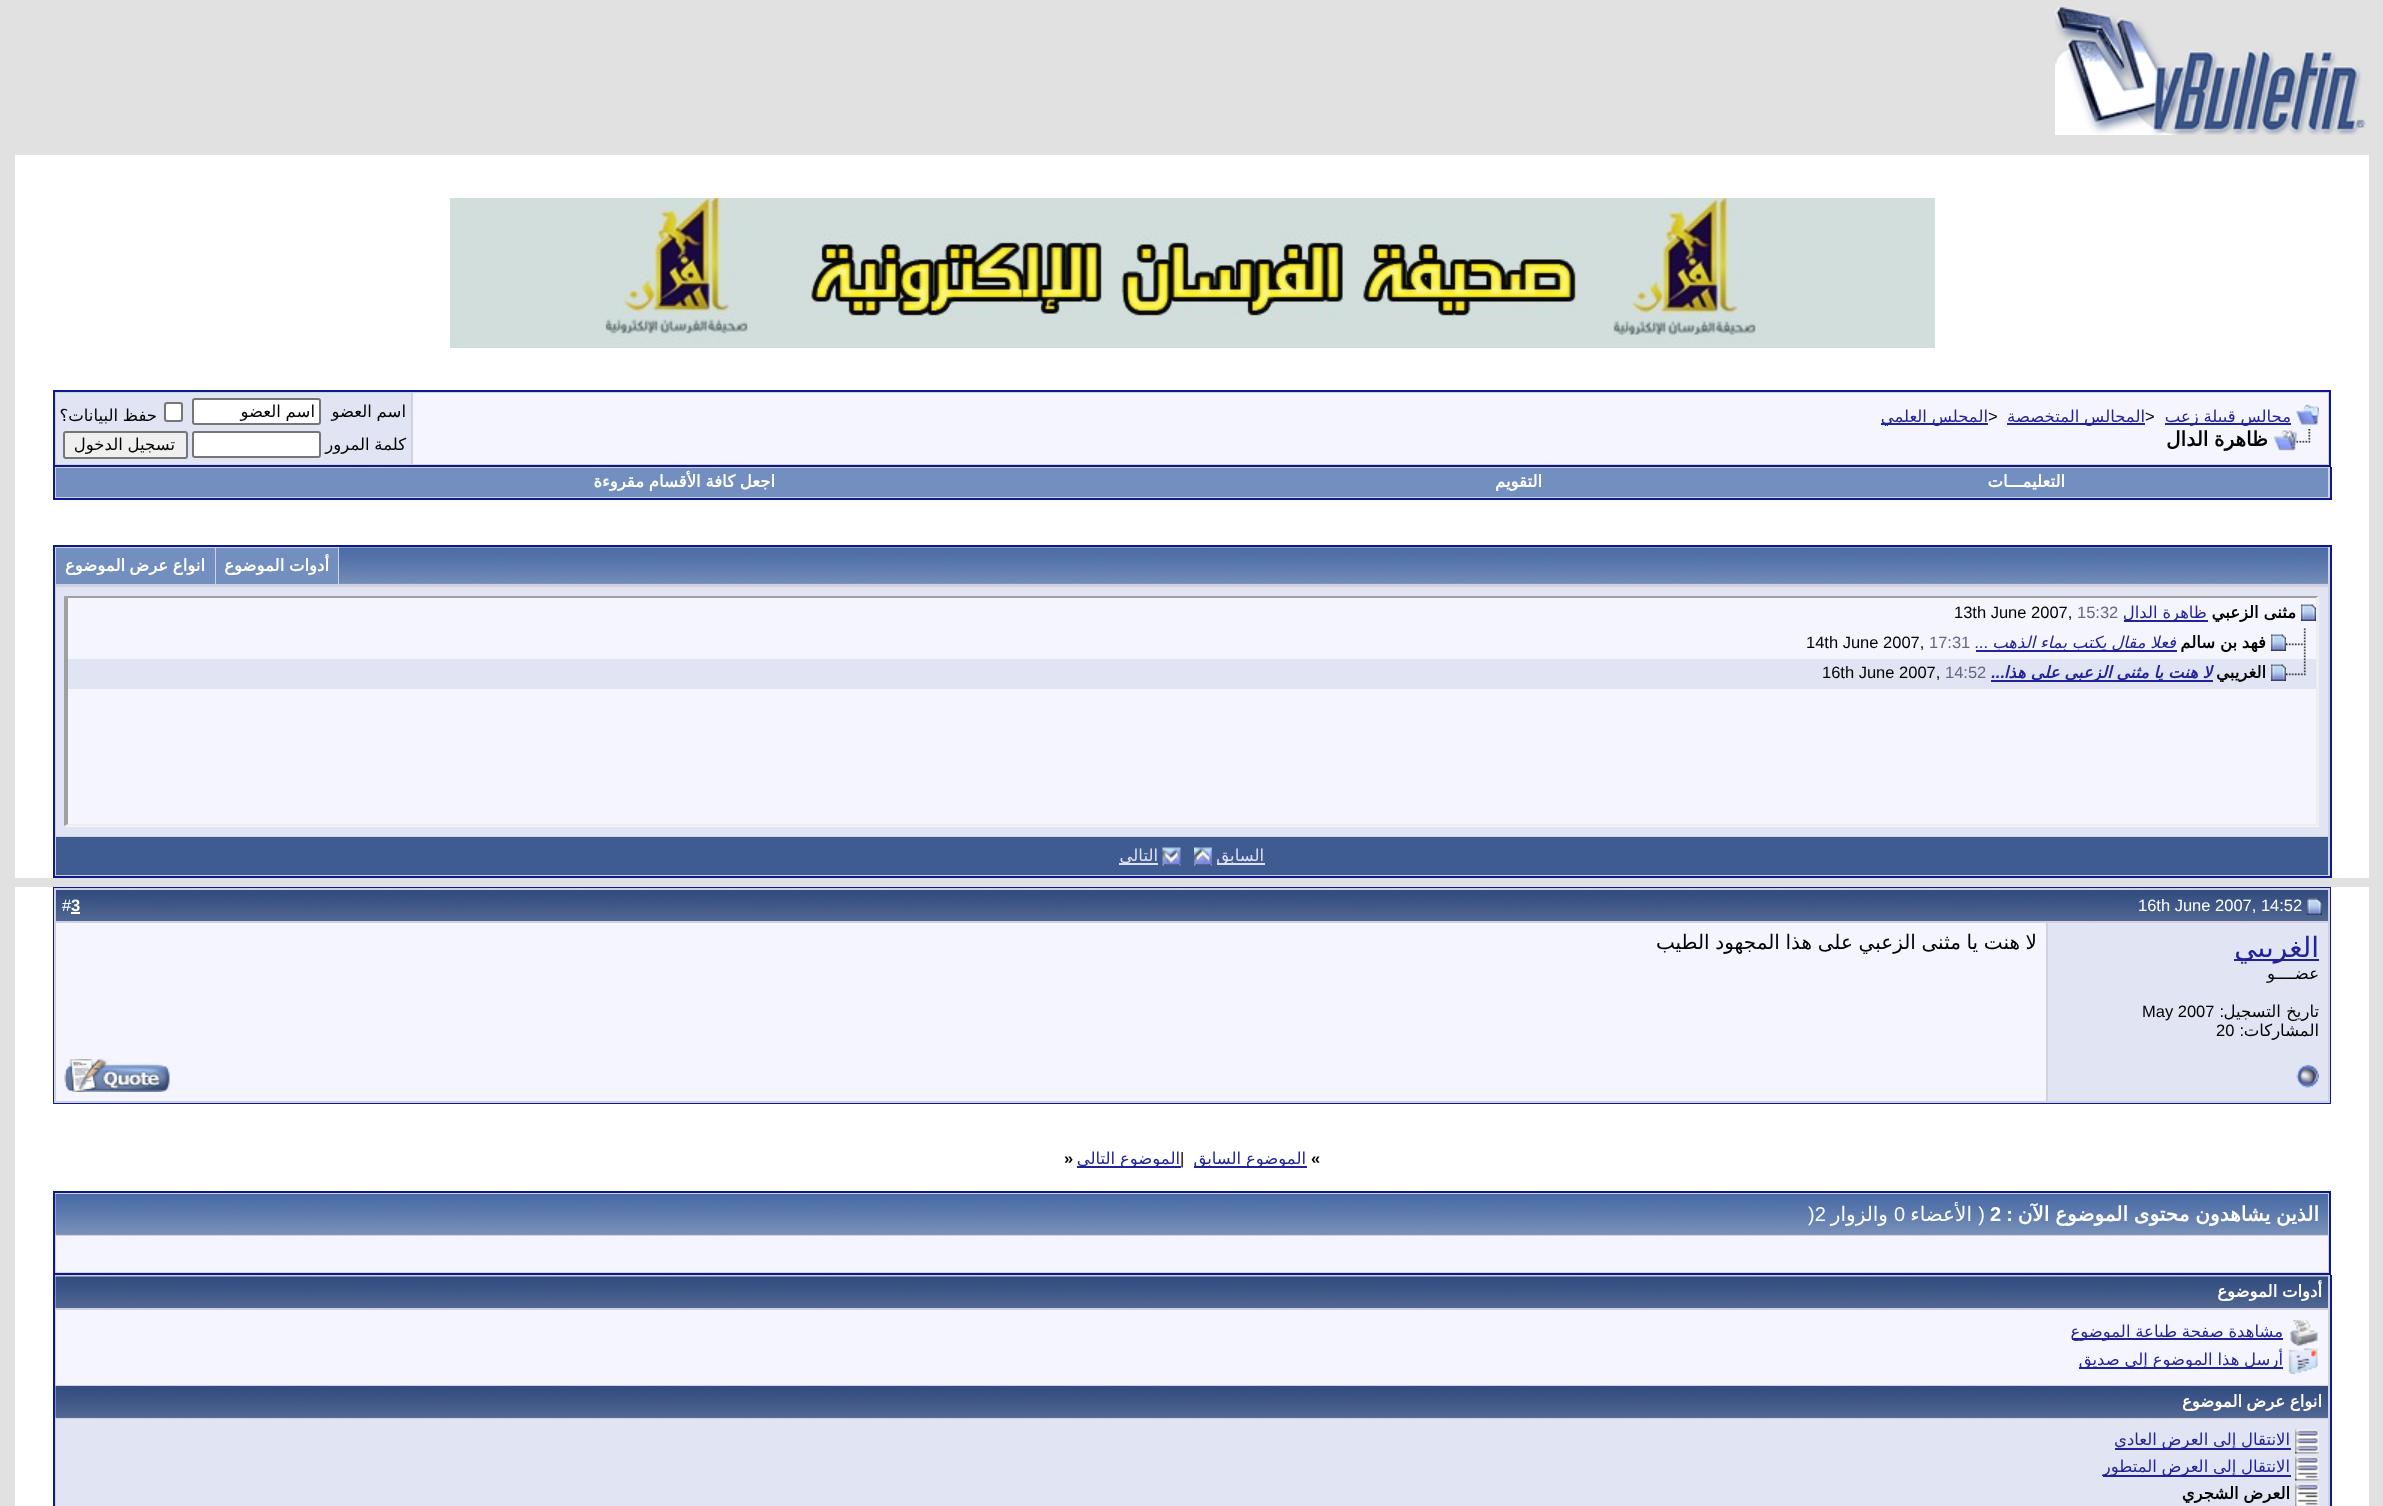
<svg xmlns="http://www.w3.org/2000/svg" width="2383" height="1506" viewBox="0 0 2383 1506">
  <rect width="100%" height="100%" fill="rgb(225,225,226)"/>
  <image x="2055" y="7" width="311" height="128" href="pic1.png"/>
  <rect x="15" y="155" width="2354" height="723" fill="rgb(255,255,255)"/>
  <image x="450" y="198" width="1485" height="150" href="pic2.png"/>
  <rect x="54" y="391" width="2276" height="75" fill="rgb(209,209,225)" stroke="rgb(11,25,140)" stroke-width="2"/>
  <rect x="413" y="393" width="1915" height="71" fill="rgb(245,245,255)"/>
  <image x="2296" y="404" width="23" height="21" href="pic3.png"/>
  <rect x="2165" y="423" width="126" height="2" fill="rgb(34,34,156)"/>
  <text x="2291" y="422" word-spacing="-0.5" font-family="DejaVu Sans" font-size="16.5" direction="rtl" fill="rgb(34,34,156)">مجالس قبيلة زعب</text>
  <text x="2145" y="422" font-family="Liberation Sans" font-size="16.5" fill="rgb(0,0,0)">&gt;</text>
  <rect x="2007" y="423" width="138" height="2" fill="rgb(34,34,156)"/>
  <text x="2145" y="422" word-spacing="-0.5" font-family="DejaVu Sans" font-size="16.5" direction="rtl" fill="rgb(34,34,156)">المجالس المتخصصة</text>
  <text x="1988" y="422" font-family="Liberation Sans" font-size="16.5" fill="rgb(0,0,0)">&gt;</text>
  <rect x="1881" y="423" width="107" height="2" fill="rgb(34,34,156)"/>
  <text x="1988" y="422" word-spacing="-0.5" font-family="DejaVu Sans" font-size="16.5" direction="rtl" fill="rgb(34,34,156)">المجلس العلمي</text>
  <image x="2274" y="429" width="37" height="22" href="pic4.png"/>
  <text x="2268" y="446" word-spacing="-0.75" font-family="DejaVu Sans" font-size="20" font-weight="bold" direction="rtl" fill="rgb(0,0,0)">ظاهرة الدال</text>
  <rect x="56" y="393" width="355" height="71" fill="rgb(225,228,242)"/>
  <text x="406" y="417" word-spacing="-0.5" font-family="DejaVu Sans" font-size="16.5" direction="rtl" fill="rgb(0,0,0)">اسم العضو</text>
  <rect x="193" y="399" width="127" height="25" rx="2" fill="rgb(255,255,255)" stroke="rgb(118,118,118)" stroke-width="2"/>
  <text x="315" y="417" word-spacing="-0.5" font-family="DejaVu Sans" font-size="16.5" direction="rtl" fill="rgb(0,0,0)">اسم العضو</text>
  <rect x="165" y="403" width="17" height="18" rx="2" fill="rgb(255,255,255)" stroke="rgb(118,118,118)" stroke-width="2"/>
  <g font-family="DejaVu Sans" font-size="16.5" direction="rtl" fill="rgb(0,0,0)">
    <text x="157" y="421" word-spacing="-0.5">حفظ البيانات؟</text>
    <text x="406" y="450" word-spacing="-0.5">كلمة المرور</text>
  </g>
  <rect x="193" y="432" width="127" height="25" rx="2" fill="rgb(255,255,255)" stroke="rgb(118,118,118)" stroke-width="2"/>
  <rect x="64" y="432" width="123" height="26" rx="2" fill="rgb(239,239,239)" stroke="rgb(118,118,118)" stroke-width="2"/>
  <text x="175" y="450" word-spacing="-0.5" font-family="DejaVu Sans" font-size="16.5" direction="rtl" fill="rgb(0,0,0)">تسجيل الدخول</text>
  <rect x="55" y="467" width="2275" height="31" fill="rgb(209,209,225)"/>
  <rect x="2330" y="467" width="2" height="33" fill="rgb(11,25,140)"/>
  <rect x="53" y="498" width="2278" height="2" fill="rgb(11,25,140)"/>
  <rect x="53" y="467" width="2" height="33" fill="rgb(11,25,140)"/>
  <rect x="56" y="468" width="2272" height="29" fill="rgb(115,143,191)"/>
  <g font-family="DejaVu Sans" font-size="16.5" font-weight="bold" direction="rtl" fill="rgb(255,255,255)">
    <text x="2065" y="487">التعليمـــات</text>
    <text x="1542" y="487">التقويم</text>
    <text x="775" y="487" word-spacing="-0.5">اجعل كافة الأقسام مقروءة</text>
  </g>
  <rect x="55" y="547" width="2275" height="329" fill="rgb(209,209,225)"/>
  <rect x="53" y="545" width="2278" height="2" fill="rgb(11,25,140)"/>
  <rect x="2330" y="545" width="2" height="333" fill="rgb(11,25,140)"/>
  <rect x="53" y="545" width="2" height="40" fill="rgb(11,25,140)"/>
  <rect x="339" y="583" width="1989" height="1" fill="rgb(134,155,191)"/>
  <image x="339" y="547" width="1989" height="37" href="pic5.png"/>
  <rect x="216" y="548" width="122" height="36" fill="rgb(115,143,191)"/>
  <text x="329" y="571" word-spacing="-0.5" font-family="DejaVu Sans" font-size="16.5" font-weight="bold" direction="rtl" fill="rgb(255,255,255)">أدوات الموضوع</text>
  <rect x="56" y="548" width="159" height="36" fill="rgb(115,143,191)"/>
  <g font-family="DejaVu Sans" font-size="16.5" font-weight="bold" direction="rtl" fill="rgb(255,255,255)">
    <text x="205" y="571" word-spacing="-0.5">انواع عرض</text>
    <text x="125" y="571">الموضوع</text>
  </g>
  <rect x="53" y="876" width="2278" height="2" fill="rgb(11,25,140)"/>
  <rect x="53" y="585" width="2" height="293" fill="rgb(11,25,140)"/>
  <rect x="56" y="587" width="2272" height="249" fill="rgb(225,228,242)"/>
  <rect x="65" y="596" width="2254" height="231" fill="rgb(245,245,255)"/>
  <path d="M64 596H2319L2316 598H68Z" fill="rgb(159,159,159)"/>
  <path d="M2319 596V826L2316 824V598Z" fill="rgb(238,238,238)"/>
  <path d="M2319 826H64L68 824H2316Z" fill="rgb(238,238,238)"/>
  <path d="M64 826V596L68 598V824Z" fill="rgb(159,159,159)"/>
  <image x="2301" y="604" width="15" height="17" href="pic6.png"/>
  <text x="2296" y="618" word-spacing="-0.5" font-family="DejaVu Sans" font-size="16.5" font-weight="bold" direction="rtl" fill="rgb(0,0,0)">مثنى الزعبي</text>
  <rect x="2124" y="620" width="84" height="2" fill="rgb(34,34,156)"/>
  <text x="2207" y="618" word-spacing="-0.5" font-family="DejaVu Sans" font-size="16.5" direction="rtl" fill="rgb(34,34,156)">ظاهرة الدال</text>
  <text x="2077" y="618" font-family="Liberation Sans" font-size="16.5" fill="rgb(102,102,134)">15:32</text>
  <text x="1954" y="618" font-family="Liberation Sans" font-size="16.5" fill="rgb(0,0,0)">13th June 2007,</text>
  <image x="2286" y="628" width="20" height="30" href="pic7.png"/>
  <image x="2271" y="634" width="15" height="17" href="pic8.png"/>
  <text x="2266" y="648" word-spacing="-0.5" font-family="DejaVu Sans" font-size="16.5" font-weight="bold" direction="rtl" fill="rgb(0,0,0)">فهد بن سالم</text>
  <rect x="1976" y="650" width="201" height="2" fill="rgb(34,34,156)"/>
  <text x="2176" y="648" word-spacing="-0.5" font-family="DejaVu Sans" font-size="16.5" font-style="italic" direction="rtl" fill="rgb(34,34,156)">فعلا مقال يكتب بماء الذهب</text>
  <text x="1975" y="648" font-family="Liberation Sans" font-size="16.5" font-style="italic" fill="rgb(34,34,156)">...</text>
  <text x="1929" y="648" font-family="Liberation Sans" font-size="16.5" fill="rgb(102,102,134)">17:31</text>
  <text x="1806" y="648" font-family="Liberation Sans" font-size="16.5" fill="rgb(0,0,0)">14th June 2007,</text>
  <rect x="68" y="659" width="2248" height="30" fill="rgb(225,228,242)"/>
  <image x="2286" y="658" width="20" height="18" href="pic9.png"/>
  <image x="2271" y="664" width="15" height="17" href="pic10.png"/>
  <text x="2266" y="678" font-family="DejaVu Sans" font-size="16.5" font-weight="bold" direction="rtl" fill="rgb(0,0,0)">الغريبي</text>
  <rect x="1991" y="680" width="222" height="2" fill="rgb(34,34,156)"/>
  <text x="2212" y="678" word-spacing="-0.5" font-family="DejaVu Sans" font-size="16.5" font-weight="bold" font-style="italic" direction="rtl" fill="rgb(34,34,156)">لا هنت يا مثنى الزعبي على هذا</text>
  <text x="2005" y="678" font-family="Liberation Sans" font-size="16.5" font-weight="bold" font-style="italic" direction="rtl" fill="rgb(34,34,156)">...</text>
  <text x="1945" y="678" font-family="Liberation Sans" font-size="16.5" fill="rgb(102,102,134)">14:52</text>
  <text x="1822" y="678" font-family="Liberation Sans" font-size="16.5" fill="rgb(0,0,0)">16th June 2007,</text>
  <rect x="56" y="837" width="2272" height="38" fill="rgb(62,92,146)"/>
  <rect x="1217" y="863" width="48" height="2" fill="rgb(224,224,246)"/>
  <text x="1264" y="861" font-family="DejaVu Sans" font-size="16.5" direction="rtl" fill="rgb(224,224,246)">السابق</text>
  <image x="1194" y="847" width="18" height="19" href="pic11.png"/>
  <image x="1162" y="847" width="19" height="19" href="pic12.png"/>
  <rect x="1119" y="863" width="39" height="2" fill="rgb(224,224,246)"/>
  <text x="1158" y="861" font-family="DejaVu Sans" font-size="16.5" direction="rtl" fill="rgb(224,224,246)">التالي</text>
  <rect x="15" y="887" width="2354" height="619" fill="rgb(255,255,255)"/>
  <rect x="54" y="888" width="2276" height="215" fill="none" stroke="rgb(11,25,140)" stroke-width="2"/>
  <image x="2046" y="890" width="282" height="31" href="pic13.png"/>
  <rect x="54" y="888" width="2276" height="2" fill="rgb(209,209,225)"/>
  <rect x="2328" y="888" width="2" height="215" fill="rgb(209,209,225)"/>
  <rect x="54" y="921" width="2276" height="2" fill="rgb(209,209,225)"/>
  <image x="2307" y="898" width="15" height="17" href="pic14.png"/>
  <text x="2138" y="911" font-family="Liberation Sans" font-size="16.5" fill="rgb(255,255,255)">16th June 2007, 14:52</text>
  <image x="56" y="890" width="1990" height="31" href="pic15.png"/>
  <rect x="54" y="888" width="2" height="162" fill="rgb(209,209,225)"/>
  <text x="71" y="911" font-family="Liberation Sans" font-size="16.5" font-weight="bold" fill="rgb(255,255,255)">3</text>
  <rect x="71" y="912" width="9" height="2" fill="rgb(255,255,255)"/>
  <text x="62" y="911" font-family="Liberation Sans" font-size="16.5" fill="rgb(255,255,255)">#</text>
  <rect x="2048" y="923" width="280" height="178" fill="rgb(225,228,242)"/>
  <rect x="2046" y="923" width="2" height="127" fill="rgb(209,209,225)"/>
  <rect x="2234" y="959" width="85" height="2" fill="rgb(34,34,156)"/>
  <text x="2319" y="957" font-family="DejaVu Sans" font-size="28" direction="rtl" fill="rgb(34,34,156)">الغريبي</text>
  <g font-family="DejaVu Sans" font-size="16.5" direction="rtl" fill="rgb(0,0,0)">
    <text x="2319" y="979">عضــــو</text>
    <text x="2319" y="1017">تاريخ التسجيل</text>
  </g>
  <text x="2224" y="1017" font-family="Liberation Sans" font-size="16.5" direction="rtl" fill="rgb(0,0,0)">:</text>
  <text x="2142" y="1017" font-family="Liberation Sans" font-size="16.5" fill="rgb(0,0,0)">May 2007</text>
  <text x="2319" y="1036" font-family="DejaVu Sans" font-size="16.5" direction="rtl" fill="rgb(0,0,0)">المشاركات</text>
  <text x="2244" y="1036" font-family="Liberation Sans" font-size="16.5" direction="rtl" fill="rgb(0,0,0)">:</text>
  <text x="2216" y="1036" font-family="Liberation Sans" font-size="16.5" fill="rgb(0,0,0)">20</text>
  <rect x="56" y="923" width="1990" height="178" fill="rgb(245,245,255)"/>
  <text x="2037" y="949" word-spacing="-0.75" font-family="DejaVu Sans" font-size="20" direction="rtl" fill="rgb(0,0,0)">لا هنت يا مثنى الزعبي على هذا المجهود الطيب</text>
  <rect x="54" y="1101" width="2276" height="2" fill="rgb(209,209,225)"/>
  <rect x="2046" y="1050" width="2" height="53" fill="rgb(209,209,225)"/>
  <image x="2296" y="1065" width="23" height="23" href="pic16.png"/>
  <rect x="54" y="1050" width="2" height="53" fill="rgb(209,209,225)"/>
  <image x="64" y="1059" width="106" height="33" href="pic17.png"/>
  <text x="1311" y="1164" font-family="Liberation Sans" font-size="16.5" font-weight="bold" fill="rgb(0,0,0)">«</text>
  <rect x="1194" y="1166" width="113" height="2" fill="rgb(34,34,156)"/>
  <text x="1306" y="1164" word-spacing="-0.5" font-family="DejaVu Sans" font-size="16.5" direction="rtl" fill="rgb(34,34,156)">الموضوع السابق</text>
  <text x="1180" y="1164" font-family="Liberation Sans" font-size="16.5" fill="rgb(0,0,0)">|</text>
  <rect x="1077" y="1166" width="104" height="2" fill="rgb(34,34,156)"/>
  <text x="1180" y="1164" word-spacing="-0.5" font-family="DejaVu Sans" font-size="16.5" direction="rtl" fill="rgb(34,34,156)">الموضوع التالي</text>
  <text x="1064" y="1164" font-family="Liberation Sans" font-size="16.5" font-weight="bold" fill="rgb(0,0,0)">»</text>
  <rect x="54" y="1192" width="2276" height="82" fill="rgb(209,209,225)" stroke="rgb(11,25,140)" stroke-width="2"/>
  <rect x="56" y="1234" width="2272" height="1" fill="rgb(134,155,191)"/>
  <image x="55" y="1194" width="2273" height="41" href="pic18.png"/>
  <text x="2319" y="1221" word-spacing="-0.5" font-family="DejaVu Sans" font-size="20" font-weight="bold" direction="rtl" fill="rgb(255,255,255)">الذين يشاهدون محتوى الموضوع الآن</text>
  <text x="2013" y="1221" font-family="Liberation Sans" font-size="20" font-weight="bold" direction="rtl" fill="rgb(255,255,255)">:</text>
  <text x="1990" y="1221" font-family="Liberation Sans" font-size="20" font-weight="bold" fill="rgb(255,255,255)">2</text>
  <text x="1985" y="1221" font-family="Liberation Sans" font-size="20" direction="rtl" fill="rgb(255,255,255)">(</text>
  <text x="1972" y="1221" font-family="DejaVu Sans" font-size="20" direction="rtl" fill="rgb(255,255,255)">الأعضاء</text>
  <text x="1894" y="1221" font-family="Liberation Sans" font-size="20" fill="rgb(255,255,255)">0</text>
  <text x="1888" y="1221" font-family="DejaVu Sans" font-size="20" direction="rtl" fill="rgb(255,255,255)">والزوار</text>
  <text x="1808" y="1221" font-family="Liberation Sans" font-size="20" fill="rgb(255,255,255)">)2</text>
  <rect x="56" y="1236" width="2272" height="36" fill="rgb(245,245,255)"/>
  <rect x="55" y="1275" width="2275" height="231" fill="rgb(209,209,225)"/>
  <rect x="2330" y="1275" width="2" height="231" fill="rgb(11,25,140)"/>
  <rect x="53" y="1275" width="2" height="231" fill="rgb(11,25,140)"/>
  <image x="55" y="1276" width="2273" height="32" href="pic19.png"/>
  <text x="2322" y="1297" word-spacing="-0.5" font-family="DejaVu Sans" font-size="16.5" font-weight="bold" direction="rtl" fill="rgb(255,255,255)">أدوات الموضوع</text>
  <rect x="56" y="1310" width="2272" height="75" fill="rgb(245,245,255)"/>
  <image x="2290" y="1320" width="28" height="26" href="pic20.png"/>
  <rect x="2072" y="1338" width="211" height="2" fill="rgb(34,34,156)"/>
  <text x="2283" y="1337" word-spacing="-0.5" font-family="DejaVu Sans" font-size="16.5" direction="rtl" fill="rgb(34,34,156)">مشاهدة صفحة طباعة الموضوع</text>
  <image x="2288" y="1348" width="30" height="26" href="pic21.png"/>
  <rect x="2079" y="1367" width="204" height="2" fill="rgb(34,34,156)"/>
  <text x="2283" y="1365" word-spacing="-0.5" font-family="DejaVu Sans" font-size="16.5" direction="rtl" fill="rgb(34,34,156)">أرسل هذا الموضوع إلى صديق</text>
  <rect x="56" y="1417" width="2272" height="1" fill="rgb(92,112,153)"/>
  <image x="55" y="1386" width="2273" height="32" href="pic22.png"/>
  <g font-family="DejaVu Sans" font-size="16.5" font-weight="bold" direction="rtl" fill="rgb(255,255,255)">
    <text x="2322" y="1407" word-spacing="-0.5">انواع عرض</text>
    <text x="2242" y="1407">الموضوع</text>
  </g>
  <rect x="56" y="1419" width="2272" height="87" fill="rgb(225,228,242)"/>
  <image x="2295" y="1429" width="24" height="25" href="pic23.png"/>
  <rect x="2115" y="1448" width="176" height="2" fill="rgb(34,34,156)"/>
  <text x="2290" y="1445" word-spacing="-0.5" font-family="DejaVu Sans" font-size="16.5" direction="rtl" fill="rgb(34,34,156)">الانتقال إلى العرض العادي</text>
  <image x="2295" y="1456" width="24" height="25" href="pic24.png"/>
  <rect x="2103" y="1475" width="188" height="2" fill="rgb(34,34,156)"/>
  <text x="2290" y="1472" word-spacing="-0.5" font-family="DejaVu Sans" font-size="16.5" direction="rtl" fill="rgb(34,34,156)">الانتقال إلى العرض المتطور</text>
  <image x="2295" y="1483" width="24" height="23" href="pic25.png"/>
  <text x="2290" y="1499" word-spacing="-0.5" font-family="DejaVu Sans" font-size="16.5" font-weight="bold" direction="rtl" fill="rgb(0,0,0)">العرض الشجري</text>
</svg>
